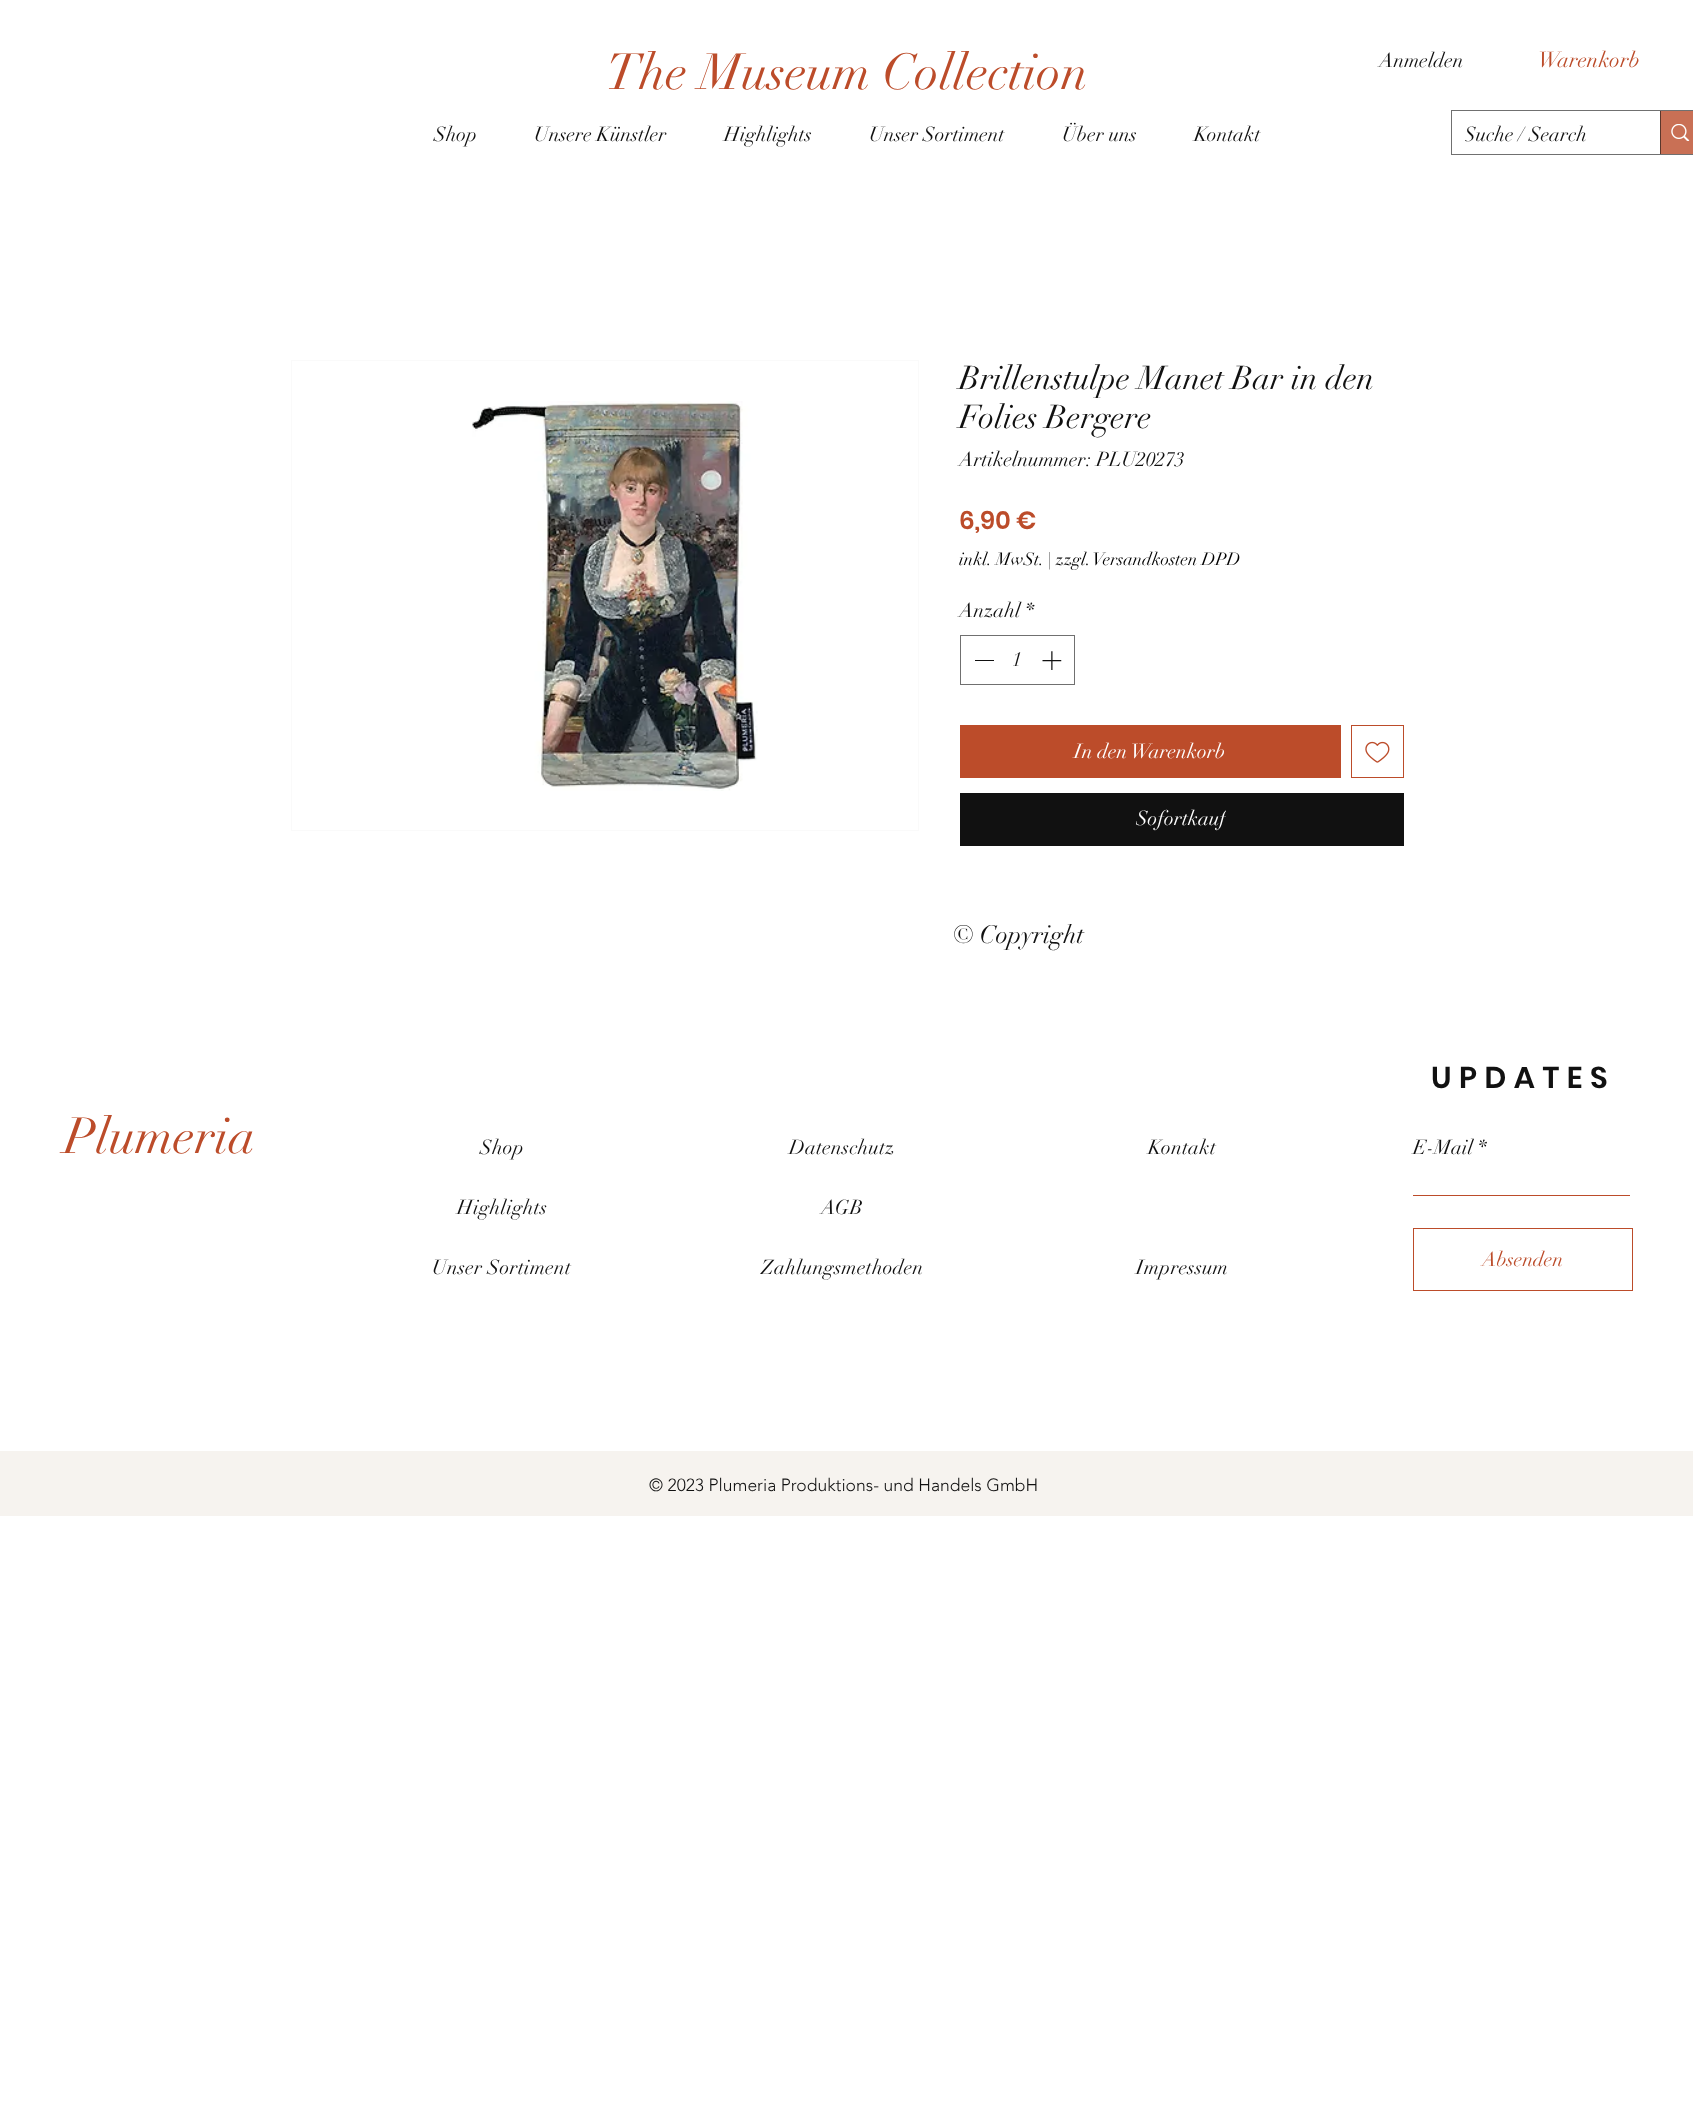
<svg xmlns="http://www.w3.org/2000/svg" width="1693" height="2114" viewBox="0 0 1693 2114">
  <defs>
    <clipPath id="clip1"><rect x="1465" y="123" width="143" height="25"/></clipPath>
    <clipPath id="clip2"><rect x="1136" y="805" width="90" height="29"/></clipPath>
  </defs>
  <rect width="100%" height="100%" fill="rgb(255,255,255)"/>
  <text x="1379" y="67" font-family="didot" font-size="20" fill="rgb(17,17,17)">Anmelden</text>
  <text x="1538" y="67" font-family="didot" font-size="21.5" fill="rgb(188,76,42)">Warenkorb</text>
  <text x="606" y="89" font-family="didot" font-size="50" fill="rgb(188,76,42)">The Museum Collection</text>
  <g font-family="didot" font-size="20" fill="rgb(17,17,17)">
    <text x="434" y="141">Shop</text>
    <text x="534" y="141">Unsere Künstler</text>
    <text x="724" y="141">Highlights</text>
    <text x="869" y="141">Unser Sortiment</text>
    <text x="1062" y="141">Über uns</text>
    <text x="1194" y="141">Kontakt</text>
  </g>
  <rect x="1451.5" y="110.5" width="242" height="44" fill="none" stroke="rgb(112,112,112)"/>
  <g clip-path="url(#clip1)">
    <text x="1464" y="141" font-family="didot" font-size="20" fill="rgb(17,17,17)">Suche / Search</text>
  </g>
  <rect x="1661" y="111" width="32" height="43" fill="rgb(201,112,85)"/>
  <rect x="1660" y="111" width="1" height="43" fill="rgb(91,55,44)"/>
  <image x="1671" y="124" width="19" height="17" href="pic1.png"/>
  <rect x="291.5" y="360.5" width="627" height="470" fill="none" stroke="rgb(250,250,250)"/>
  <image x="472" y="401" width="286" height="390" href="pic2.png"/>
  <g font-family="didot" font-size="32.5" fill="rgb(17,17,17)">
    <text>
      <tspan x="959" y="389">Brillenstulpe Manet Bar in den</tspan>
      <tspan x="959" y="428">Folies Bergere</tspan>
    </text>
  </g>
  <text x="959" y="466" font-family="didot" font-size="20" fill="rgb(17,17,17)">Artikelnummer: PLU20273</text>
  <text x="959" y="529" font-family="Poppins" font-size="25" font-weight="600" fill="rgb(188,76,42)">6,90 €</text>
  <text x="959" y="565" font-family="didot" font-size="17.5" fill="rgb(0,0,0)">inkl. MwSt. | zzgl. Versandkosten DPD</text>
  <text x="959" y="617" font-family="didot" font-size="20" fill="rgb(17,17,17)">Anzahl *</text>
  <rect x="960.5" y="635.5" width="114" height="49" fill="none" stroke="rgb(112,112,112)"/>
  <rect x="975" y="660" width="19" height="1" fill="rgb(17,17,17)"/>
  <text x="1012" y="666" font-family="didot" font-size="20" fill="rgb(17,17,17)">1</text>
  <image x="1042" y="651" width="20" height="19" href="pic3.png"/>
  <rect x="960" y="725" width="381" height="53" fill="rgb(188,76,42)"/>
  <text x="1074" y="758" font-family="didot" font-size="20" fill="rgb(255,255,255)">In den Warenkorb</text>
  <rect x="1351.5" y="725.5" width="52" height="52" fill="none" stroke="rgb(188,76,42)"/>
  <image x="1365" y="741" width="25" height="22" href="pic4.png"/>
  <rect x="960" y="793" width="444" height="53" fill="rgb(17,17,17)"/>
  <g clip-path="url(#clip2)">
    <text x="1136" y="825" font-family="didot" font-size="20" fill="rgb(255,255,255)">Sofortkauf</text>
  </g>
  <text x="953" y="943" font-family="didot" font-size="25" fill="rgb(17,17,17)">© Copyright</text>
  <text x="64" y="1153" font-family="didot" font-size="50" fill="rgb(188,76,42)">Plumeria</text>
  <g font-family="didot" font-size="20" letter-spacing="0.25" fill="rgb(17,17,17)">
    <text x="480" y="1154">Shop</text>
    <text x="457" y="1214">Highlights</text>
    <text x="432" y="1274">Unser Sortiment</text>
    <text x="789" y="1154">Datenschutz</text>
    <text x="821" y="1214">AGB</text>
    <text x="761" y="1274">Zahlungsmethoden</text>
    <text x="1148" y="1154">Kontakt</text>
    <text x="1136" y="1274">Impressum</text>
  </g>
  <text x="1431" y="1088" font-family="Poppins" font-size="30" font-weight="600" letter-spacing="7.5" fill="rgb(17,17,17)">UPDATES</text>
  <text x="1413" y="1154" font-family="didot" font-size="20" fill="rgb(17,17,17)">E-Mail *</text>
  <rect x="1413" y="1195" width="217" height="1" fill="rgb(188,76,42)"/>
  <rect x="1413.5" y="1228.5" width="219" height="62" fill="none" stroke="rgb(188,76,42)"/>
  <text x="1482" y="1266" font-family="didot" font-size="20" fill="rgb(188,76,42)">Absenden</text>
  <rect x="0" y="1451" width="1693" height="65" fill="rgb(246,243,239)"/>
  <text x="649" y="1491" font-family="'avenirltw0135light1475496'" font-size="17.5" font-weight="300" fill="rgb(17,17,17)">© 2023 Plumeria Produktions- und Handels GmbH</text>
</svg>
